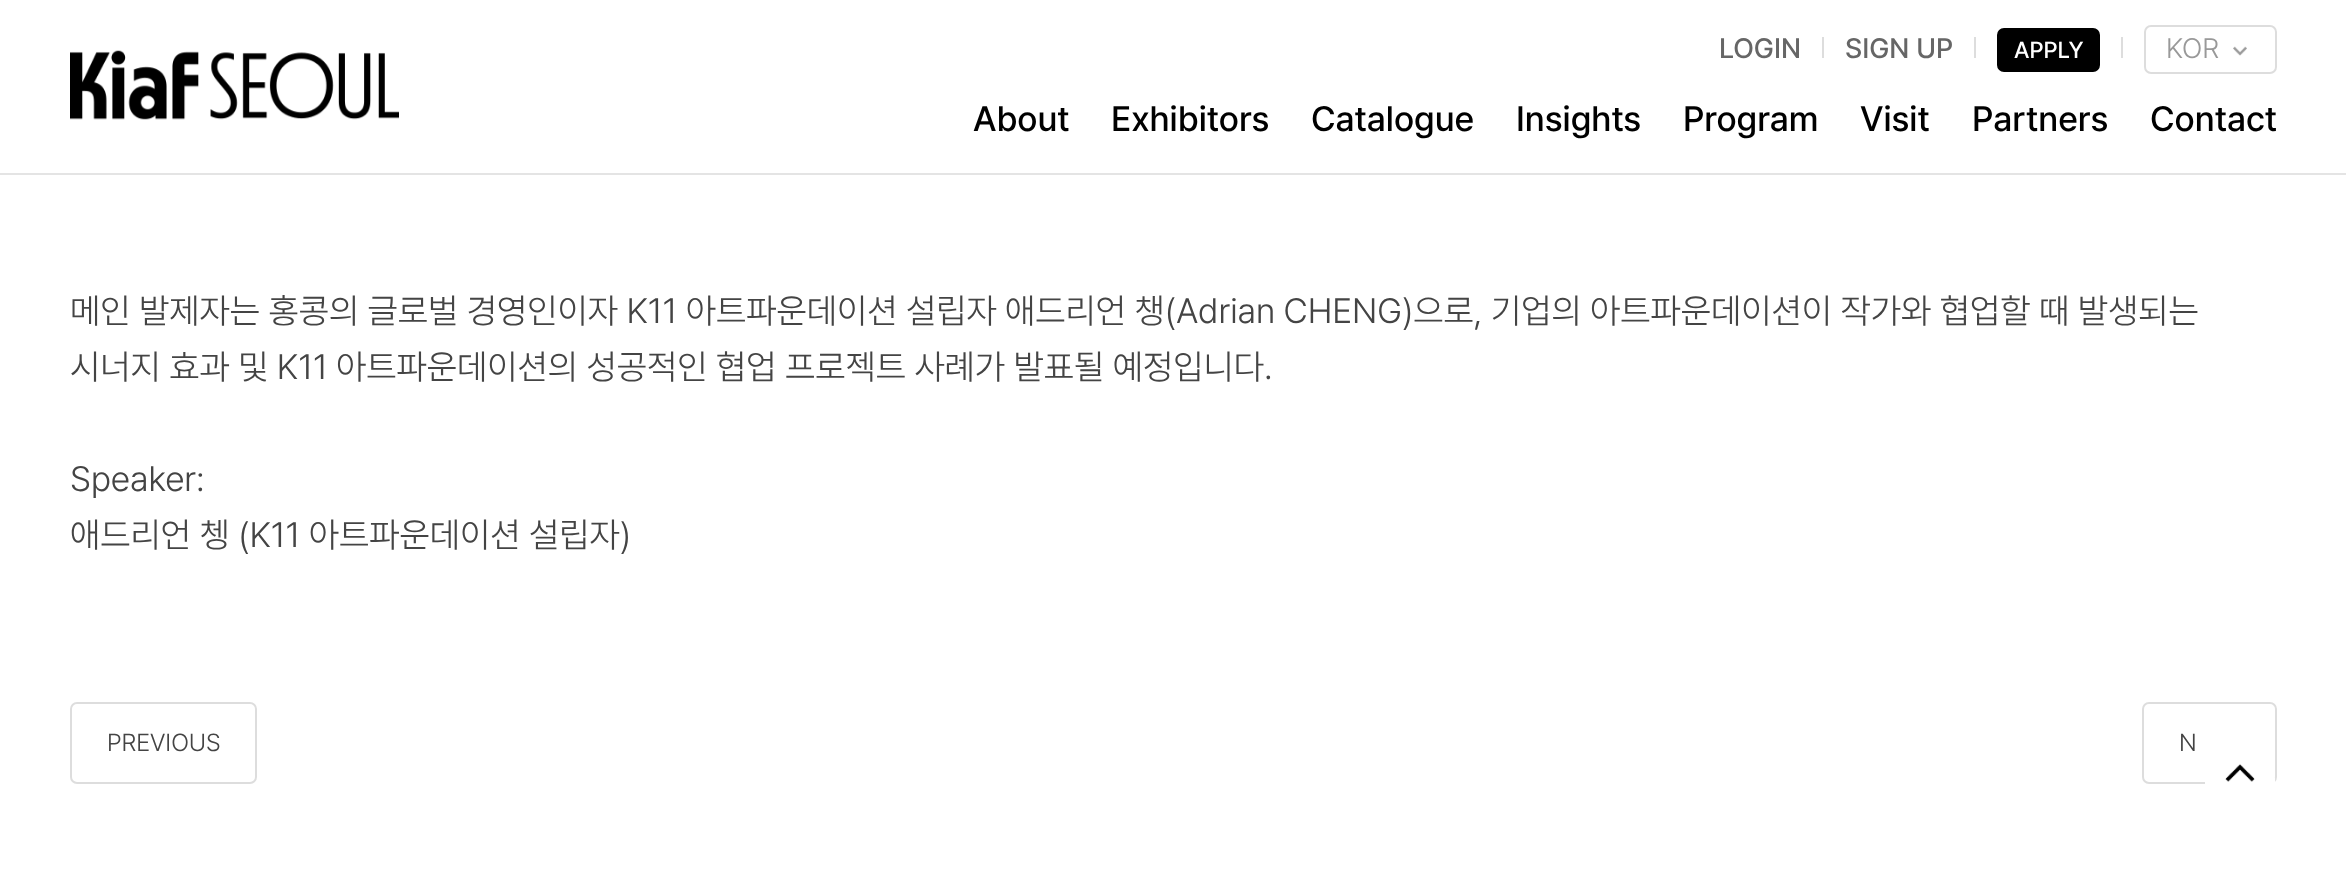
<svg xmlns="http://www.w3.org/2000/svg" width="2346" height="877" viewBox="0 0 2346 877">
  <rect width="100%" height="100%" fill="rgb(255,255,255)"/>
  <rect x="0" y="173" width="2346" height="2" fill="rgb(228,228,228)"/>
  <image x="70" y="50" width="329" height="70" href="pic1.png"/>
  <text x="1719" y="58" font-family="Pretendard" font-size="28" font-weight="500" fill="rgb(102,102,102)">LOGIN</text>
  <rect x="1822" y="37" width="2" height="21" fill="rgb(221,221,221)"/>
  <text x="1845" y="58" font-family="Pretendard" font-size="28" font-weight="500" fill="rgb(102,102,102)">SIGN UP</text>
  <rect x="1974" y="37" width="2" height="21" fill="rgb(221,221,221)"/>
  <rect x="1998" y="29" width="101" height="42" rx="6" fill="rgb(0,0,0)" stroke="rgb(0,0,0)" stroke-width="2"/>
  <text x="2014" y="58" font-family="Pretendard" font-size="23" font-weight="500" fill="rgb(255,255,255)">APPLY</text>
  <rect x="2121" y="37" width="2" height="21" fill="rgb(221,221,221)"/>
  <rect x="2145" y="26" width="131" height="47" rx="6" fill="none" stroke="rgb(221,221,221)" stroke-width="2"/>
  <text x="2166" y="58" font-family="Pretendard" font-size="28" font-weight="300" fill="rgb(153,153,153)">KOR</text>
  <image x="2233" y="46" width="14" height="10" href="pic2.png"/>
  <g font-family="Pretendard" font-size="35" font-weight="500" fill="rgb(0,0,0)">
    <text x="973" y="131">About</text>
    <text x="1111" y="131">Exhibitors</text>
    <text x="1311" y="131">Catalogue</text>
    <text x="1516" y="131">Insights</text>
    <text x="1683" y="131">Program</text>
    <text x="1860" y="131">Visit</text>
    <text x="1972" y="131">Partners</text>
    <text x="2150" y="131">Contact</text>
  </g>
  <g font-family="Pretendard" font-size="35" font-weight="300" fill="rgb(68,68,68)">
    <text>
      <tspan x="70" y="323">메인 발제자는 홍콩의 글로벌 경영인이자 K11 아트파운데이션 설립자 애드리언 챙(Adrian CHENG)으로, 기업의 아트파운데이션이 작가와 협업할 때 발생되는</tspan>
      <tspan x="70" y="379">시너지 효과 및 K11 아트파운데이션의 성공적인 협업 프로젝트 사례가 발표될 예정입니다.</tspan>
    </text>
    <text>
      <tspan x="70" y="491">Speaker:</tspan>
      <tspan x="70" y="547">애드리언 쳉 (K11 아트파운데이션 설립자)</tspan>
    </text>
  </g>
  <rect x="71" y="703" width="185" height="80" rx="6" fill="none" stroke="rgb(221,221,221)" stroke-width="2"/>
  <text x="107" y="751" font-family="Pretendard" font-size="24.5" font-weight="300" fill="rgb(68,68,68)">PREVIOUS</text>
  <rect x="2143" y="703" width="133" height="80" rx="6" fill="none" stroke="rgb(221,221,221)" stroke-width="2"/>
  <text x="2179" y="751" font-family="Pretendard" font-size="24.5" font-weight="300" fill="rgb(68,68,68)">N</text>
  <rect x="2205" y="778" width="70" height="6" fill="rgb(255,255,255)"/>
  <image x="2225" y="764" width="30" height="18" href="pic3.png"/>
</svg>
